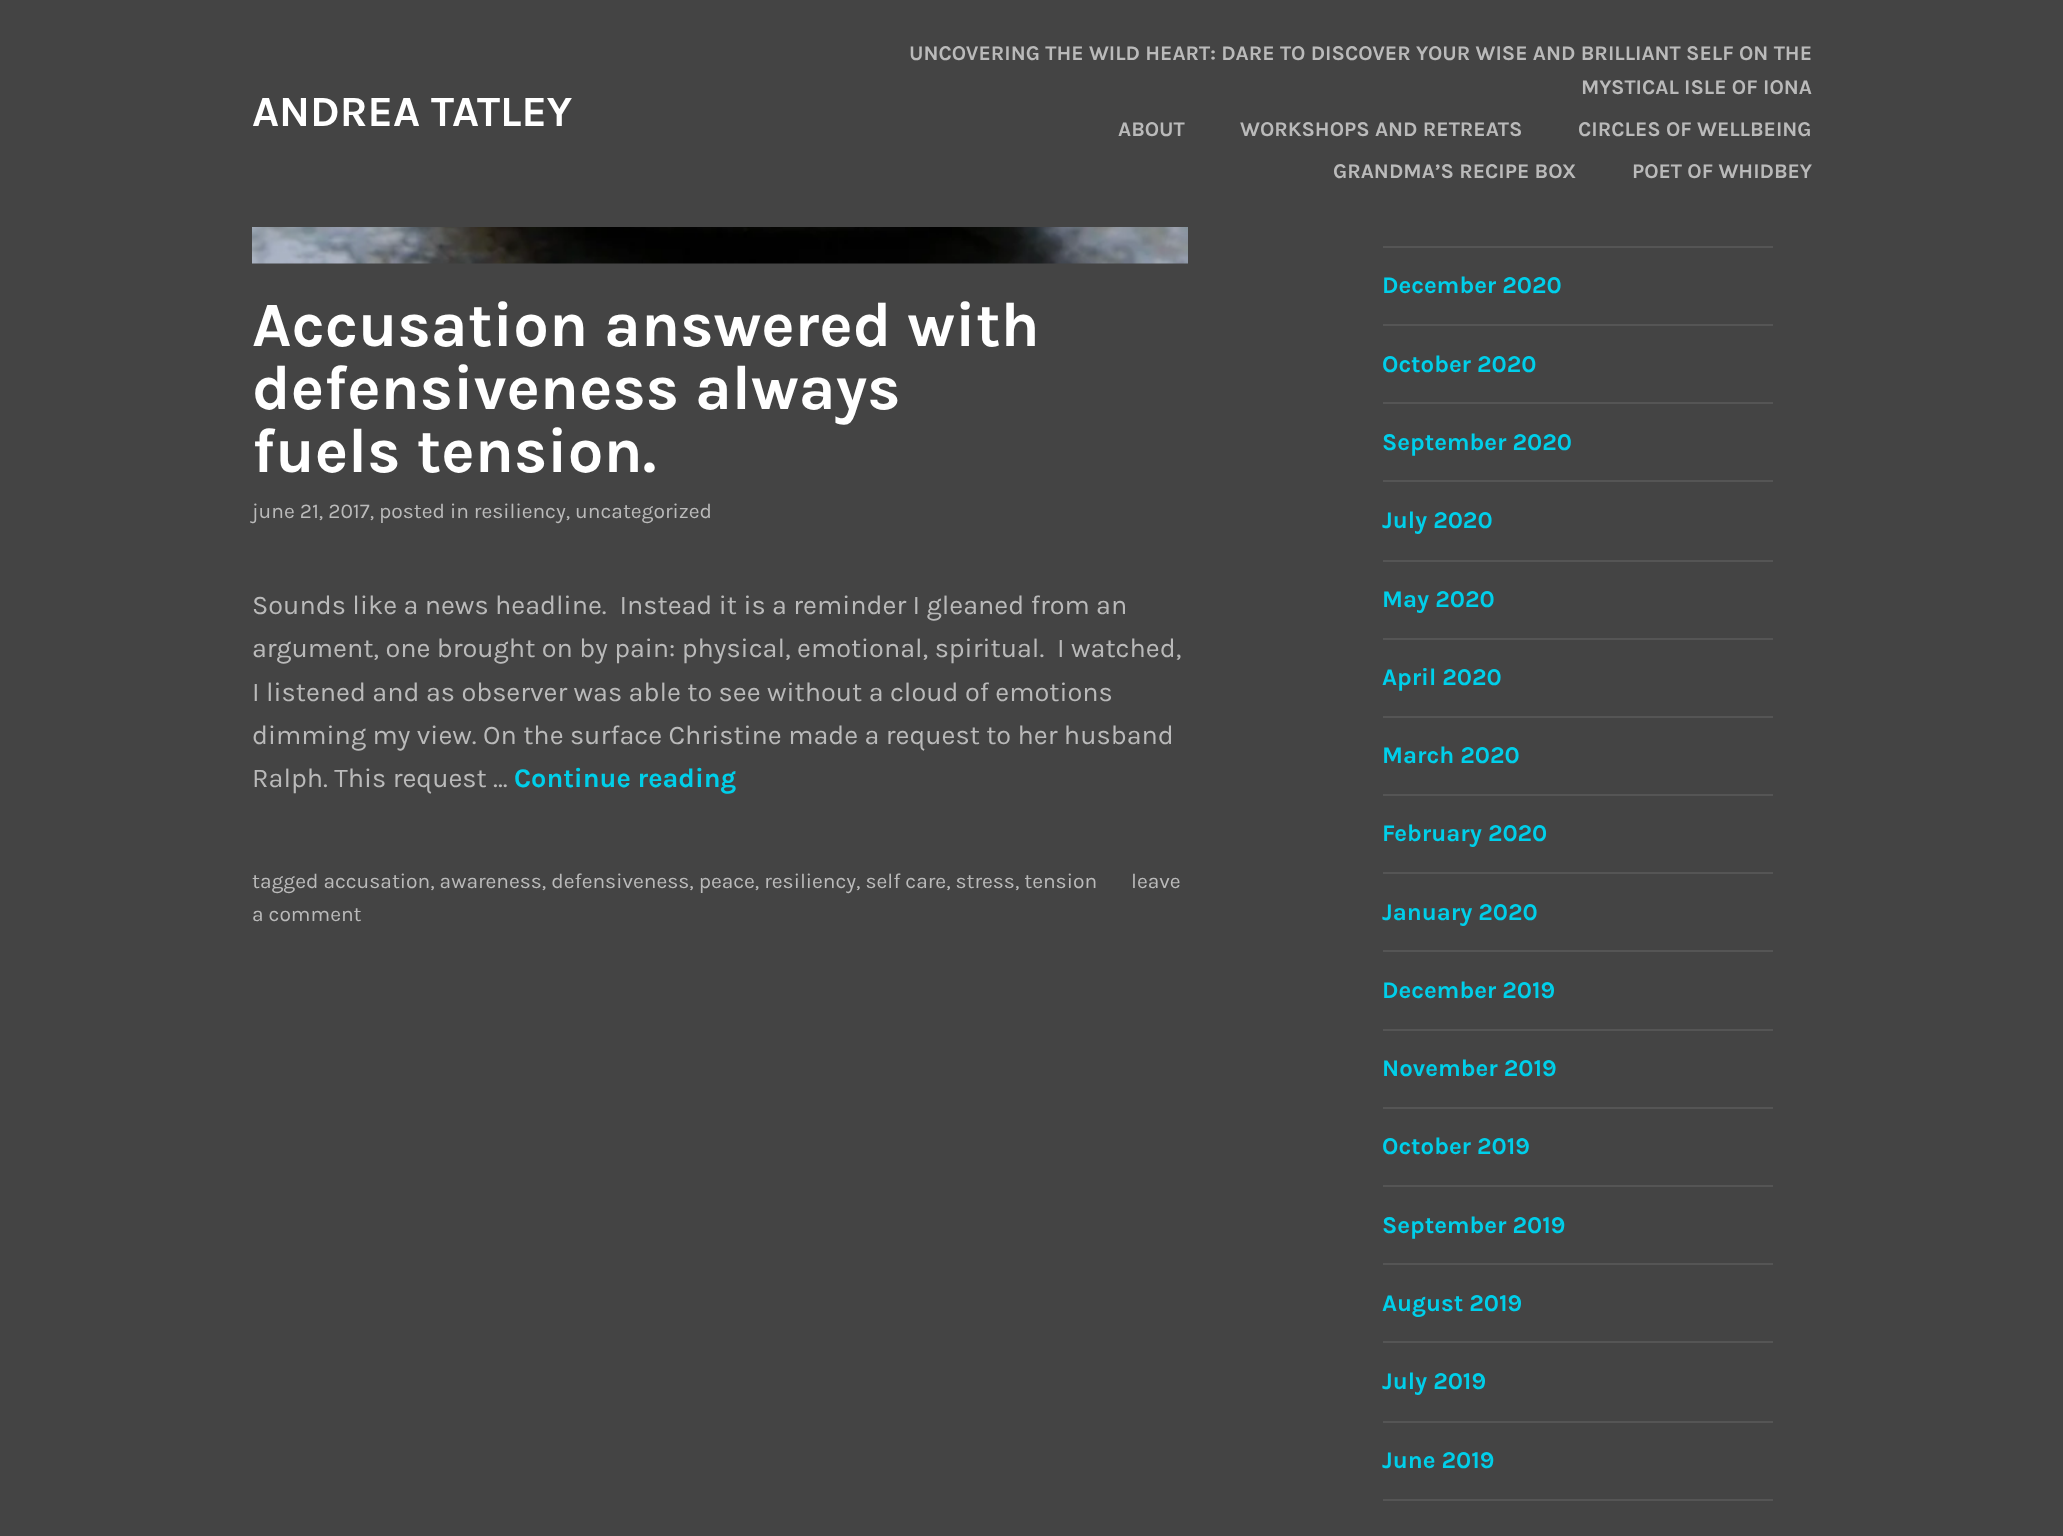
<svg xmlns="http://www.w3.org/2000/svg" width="2063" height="1536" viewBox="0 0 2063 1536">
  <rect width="100%" height="100%" fill="rgb(68,68,68)"/>
  <text x="252" y="126" font-family="Karla" font-size="43.25" font-weight="bold" fill="rgb(255,255,255)">ANDREA TATLEY</text>
  <g font-family="Karla" font-size="21" font-weight="bold" fill="rgb(186,186,186)">
    <text x="909" y="60">UNCOVERING THE WILD HEART: DARE TO DISCOVER YOUR WISE AND BRILLIANT SELF ON THE</text>
    <text x="1581" y="94">MYSTICAL ISLE OF IONA</text>
    <text x="1118" y="136">ABOUT</text>
    <text x="1240" y="136">WORKSHOPS AND RETREATS</text>
    <text x="1578" y="136">CIRCLES OF WELLBEING</text>
    <text x="1333" y="178">GRANDMA’S RECIPE BOX</text>
    <text x="1632" y="178">POET OF WHIDBEY</text>
  </g>
  <image x="252" y="227" width="936" height="37" href="pic1.png"/>
  <g font-family="Karla" font-size="63" font-weight="bold" fill="rgb(255,255,255)">
    <text>
      <tspan x="252" y="346">Accusation answered with</tspan>
      <tspan x="252" y="409">defensiveness always</tspan>
      <tspan x="252" y="472">fuels tension.</tspan>
    </text>
  </g>
  <text x="252" y="518" font-family="Karla" font-size="21" fill="rgb(186,186,186)">june 21, 2017, posted in resiliency, uncategorized</text>
  <g font-family="Karla" font-size="27" fill="rgb(186,186,186)">
    <text xml:space="preserve"><tspan x="252" y="614">Sounds like a news headline.  Instead it is a reminder I gleaned from an</tspan><tspan x="252" y="657">argument, one brought on by pain: physical, emotional, spiritual.  I watched,</tspan><tspan x="252" y="701">I listened and as observer was able to see without a cloud of emotions</tspan><tspan x="252" y="744">dimming my view. On the surface Christine made a request to her husband</tspan><tspan x="252" y="787">Ralph. This request …</tspan></text>
  </g>
  <text x="514" y="787" font-family="Karla" font-size="27" font-weight="bold" fill="rgb(0,207,234)">Continue reading</text>
  <g font-family="Karla" font-size="21" fill="rgb(186,186,186)">
    <text x="252" y="888">tagged accusation, awareness, defensiveness, peace, resiliency, self care, stress, tension</text>
    <text x="1131" y="888">leave</text>
    <text x="252" y="921">a comment</text>
  </g>
  <rect x="1383" y="246" width="390" height="2" fill="rgb(85,85,85)"/>
  <text x="1382" y="293" font-family="Karla" font-size="24" font-weight="bold" fill="rgb(0,207,234)">December 2020</text>
  <rect x="1383" y="324" width="390" height="2" fill="rgb(85,85,85)"/>
  <text x="1382" y="372" font-family="Karla" font-size="24" font-weight="bold" fill="rgb(0,207,234)">October 2020</text>
  <rect x="1383" y="402" width="390" height="2" fill="rgb(85,85,85)"/>
  <text x="1382" y="450" font-family="Karla" font-size="24" font-weight="bold" fill="rgb(0,207,234)">September 2020</text>
  <rect x="1383" y="480" width="390" height="2" fill="rgb(85,85,85)"/>
  <text x="1382" y="528" font-family="Karla" font-size="24" font-weight="bold" fill="rgb(0,207,234)">July 2020</text>
  <rect x="1383" y="560" width="390" height="2" fill="rgb(85,85,85)"/>
  <text x="1382" y="607" font-family="Karla" font-size="24" font-weight="bold" fill="rgb(0,207,234)">May 2020</text>
  <rect x="1383" y="638" width="390" height="2" fill="rgb(85,85,85)"/>
  <text x="1382" y="685" font-family="Karla" font-size="24" font-weight="bold" fill="rgb(0,207,234)">April 2020</text>
  <rect x="1383" y="716" width="390" height="2" fill="rgb(85,85,85)"/>
  <text x="1382" y="763" font-family="Karla" font-size="24" font-weight="bold" fill="rgb(0,207,234)">March 2020</text>
  <rect x="1383" y="794" width="390" height="2" fill="rgb(85,85,85)"/>
  <text x="1382" y="841" font-family="Karla" font-size="24" font-weight="bold" fill="rgb(0,207,234)">February 2020</text>
  <rect x="1383" y="872" width="390" height="2" fill="rgb(85,85,85)"/>
  <text x="1382" y="920" font-family="Karla" font-size="24" font-weight="bold" fill="rgb(0,207,234)">January 2020</text>
  <rect x="1383" y="950" width="390" height="2" fill="rgb(85,85,85)"/>
  <text x="1382" y="998" font-family="Karla" font-size="24" font-weight="bold" fill="rgb(0,207,234)">December 2019</text>
  <rect x="1383" y="1029" width="390" height="2" fill="rgb(85,85,85)"/>
  <text x="1382" y="1076" font-family="Karla" font-size="24" font-weight="bold" fill="rgb(0,207,234)">November 2019</text>
  <rect x="1383" y="1107" width="390" height="2" fill="rgb(85,85,85)"/>
  <text x="1382" y="1154" font-family="Karla" font-size="24" font-weight="bold" fill="rgb(0,207,234)">October 2019</text>
  <rect x="1383" y="1185" width="390" height="2" fill="rgb(85,85,85)"/>
  <text x="1382" y="1233" font-family="Karla" font-size="24" font-weight="bold" fill="rgb(0,207,234)">September 2019</text>
  <rect x="1383" y="1263" width="390" height="2" fill="rgb(85,85,85)"/>
  <text x="1382" y="1311" font-family="Karla" font-size="24" font-weight="bold" fill="rgb(0,207,234)">August 2019</text>
  <rect x="1383" y="1341" width="390" height="2" fill="rgb(85,85,85)"/>
  <text x="1382" y="1389" font-family="Karla" font-size="24" font-weight="bold" fill="rgb(0,207,234)">July 2019</text>
  <rect x="1383" y="1421" width="390" height="2" fill="rgb(85,85,85)"/>
  <text x="1382" y="1468" font-family="Karla" font-size="24" font-weight="bold" fill="rgb(0,207,234)">June 2019</text>
  <rect x="1383" y="1499" width="390" height="2" fill="rgb(85,85,85)"/>
</svg>
